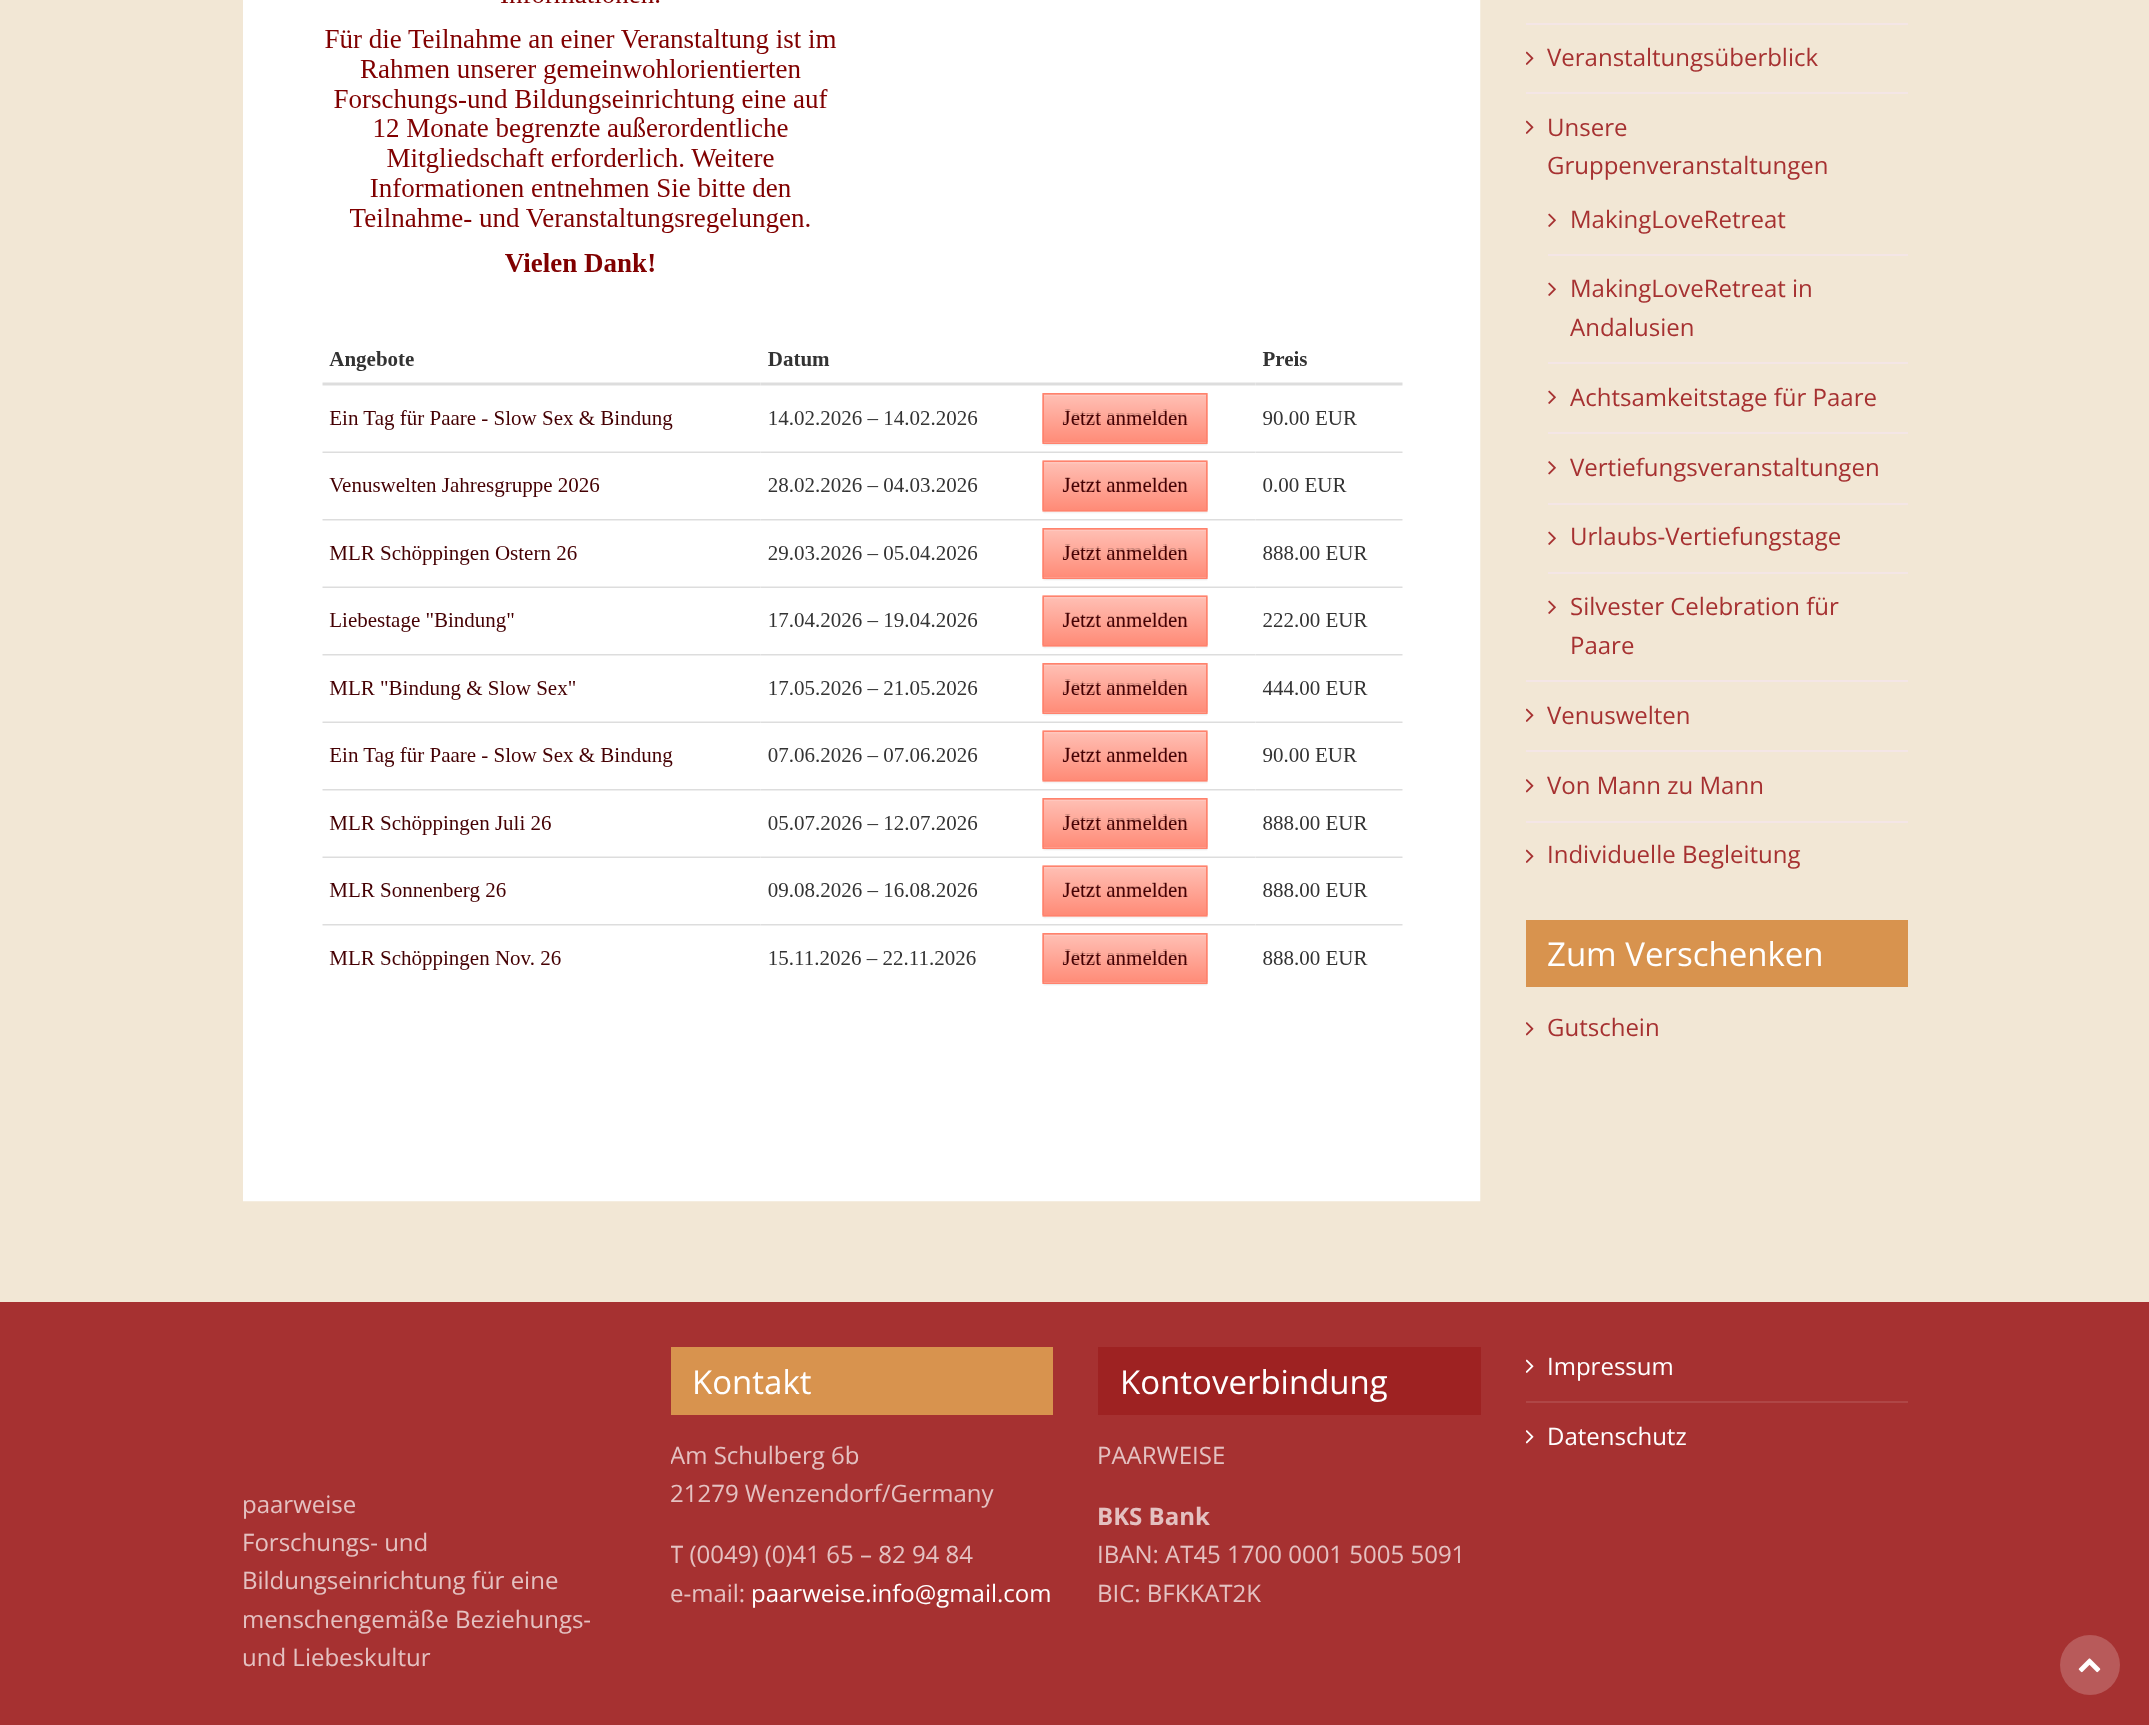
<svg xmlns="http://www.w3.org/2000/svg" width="2149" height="1725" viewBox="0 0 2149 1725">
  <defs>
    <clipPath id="clip1"><rect x="671" y="1437" width="382" height="198"/></clipPath>
  </defs>
  <rect width="100%" height="100%" fill="rgb(242,231,213)"/>
  <image x="243" y="0" width="1238" height="1202" href="pic1.png"/>
  <rect x="1526" y="23" width="382" height="2" fill="rgb(244,230,230)"/>
  <rect x="1526" y="92" width="382" height="2" fill="rgb(244,230,230)"/>
  <image x="1526" y="51" width="8" height="14" href="pic2.png"/>
  <text x="1547" y="66" font-family="Open Sans" font-size="24" fill="rgb(166,49,49)">Veranstaltungsüberblick</text>
  <rect x="1526" y="680" width="382" height="2" fill="rgb(244,230,230)"/>
  <image x="1526" y="120" width="8" height="14" href="pic2.png"/>
  <g font-family="Open Sans" font-size="24" fill="rgb(166,49,49)">
    <text>
      <tspan x="1547" y="136">Unsere</tspan>
      <tspan x="1547" y="174">Gruppenveranstaltungen</tspan>
    </text>
  </g>
  <rect x="1548" y="254" width="360" height="2" fill="rgb(244,230,230)"/>
  <image x="1548" y="213" width="8" height="14" href="pic3.png"/>
  <text x="1570" y="228" font-family="Open Sans" font-size="24" fill="rgb(166,49,49)">MakingLoveRetreat</text>
  <rect x="1548" y="362" width="360" height="2" fill="rgb(244,230,230)"/>
  <image x="1548" y="282" width="8" height="14" href="pic3.png"/>
  <g font-family="Open Sans" font-size="24" fill="rgb(166,49,49)">
    <text>
      <tspan x="1570" y="297">MakingLoveRetreat in</tspan>
      <tspan x="1570" y="336">Andalusien</tspan>
    </text>
  </g>
  <rect x="1548" y="432" width="360" height="2" fill="rgb(244,230,230)"/>
  <image x="1548" y="390" width="8" height="14" href="pic3.png"/>
  <text x="1570" y="406" font-family="Open Sans" font-size="24" fill="rgb(166,49,49)">Achtsamkeitstage für Paare</text>
  <rect x="1548" y="503" width="360" height="2" fill="rgb(244,230,230)"/>
  <image x="1548" y="461" width="8" height="14" href="pic4.png"/>
  <text x="1570" y="476" font-family="Open Sans" font-size="24" fill="rgb(166,49,49)">Vertiefungsveranstaltungen</text>
  <rect x="1548" y="572" width="360" height="2" fill="rgb(244,230,230)"/>
  <image x="1548" y="531" width="8" height="14" href="pic3.png"/>
  <text x="1570" y="545" font-family="Open Sans" font-size="24" fill="rgb(166,49,49)">Urlaubs-Vertiefungstage</text>
  <image x="1548" y="600" width="8" height="14" href="pic3.png"/>
  <g font-family="Open Sans" font-size="24" fill="rgb(166,49,49)">
    <text>
      <tspan x="1570" y="615">Silvester Celebration für</tspan>
      <tspan x="1570" y="654">Paare</tspan>
    </text>
  </g>
  <rect x="1526" y="750" width="382" height="2" fill="rgb(244,230,230)"/>
  <image x="1526" y="708" width="8" height="14" href="pic2.png"/>
  <text x="1547" y="724" font-family="Open Sans" font-size="24" fill="rgb(166,49,49)">Venuswelten</text>
  <rect x="1526" y="821" width="382" height="2" fill="rgb(244,230,230)"/>
  <image x="1526" y="779" width="8" height="14" href="pic5.png"/>
  <text x="1547" y="794" font-family="Open Sans" font-size="24" fill="rgb(166,49,49)">Von Mann zu Mann</text>
  <image x="1526" y="849" width="8" height="14" href="pic2.png"/>
  <text x="1547" y="863" font-family="Open Sans" font-size="24" fill="rgb(166,49,49)">Individuelle Begleitung</text>
  <rect x="1526" y="920" width="382" height="67" fill="rgb(216,147,78)"/>
  <text x="1547" y="966" font-family="Open Sans" font-size="33" fill="rgb(255,255,255)">Zum Verschenken</text>
  <image x="1526" y="1022" width="8" height="14" href="pic5.png"/>
  <text x="1547" y="1036" font-family="Open Sans" font-size="24" fill="rgb(166,49,49)">Gutschein</text>
  <rect x="0" y="1302" width="2149" height="423" fill="rgb(166,49,49)"/>
  <g font-family="Open Sans" font-size="24" fill="rgb(228,193,193)">
    <text>
      <tspan x="242" y="1513">paarweise</tspan>
      <tspan x="242" y="1551">Forschungs- und</tspan>
      <tspan x="242" y="1589">Bildungseinrichtung für eine</tspan>
      <tspan x="242" y="1628">menschengemäße Beziehungs-</tspan>
      <tspan x="242" y="1666">und Liebeskultur</tspan>
    </text>
  </g>
  <rect x="671" y="1347" width="382" height="68" fill="rgb(216,147,78)"/>
  <text x="692" y="1394" font-family="Open Sans" font-size="33" fill="rgb(255,255,255)">Kontakt</text>
  <g clip-path="url(#clip1)">
    <text x="670" y="1464" font-family="Open Sans" font-size="24" fill="rgb(228,193,193)">Am Schulberg 6b</text>
  </g>
  <text x="670" y="1502" font-family="Open Sans" font-size="24" fill="rgb(228,193,193)">21279 Wenzendorf/Germany</text>
  <g clip-path="url(#clip1)">
    <text x="670" y="1563" font-family="Open Sans" font-size="24" fill="rgb(228,193,193)">T (0049) (0)41 65 – 82 94 84</text>
  </g>
  <text x="670" y="1602" font-family="Open Sans" font-size="24" fill="rgb(228,193,193)">e-mail:</text>
  <text x="751" y="1602" font-family="Open Sans" font-size="24" fill="rgb(255,255,255)">paarweise.info@gmail.com</text>
  <rect x="1098" y="1347" width="383" height="68" fill="rgb(158,34,34)"/>
  <text x="1120" y="1394" font-family="Open Sans" font-size="33" fill="rgb(255,255,255)">Kontoverbindung</text>
  <text x="1097" y="1464" font-family="Open Sans" font-size="24" fill="rgb(228,193,193)">PAARWEISE</text>
  <text x="1097" y="1525" font-family="Open Sans" font-size="24" font-weight="bold" fill="rgb(228,193,193)">BKS Bank</text>
  <g font-family="Open Sans" font-size="24" fill="rgb(228,193,193)">
    <text>
      <tspan x="1097" y="1563">IBAN: AT45 1700 0001 5005 5091</tspan>
      <tspan x="1097" y="1602">BIC: BFKKAT2K</tspan>
    </text>
  </g>
  <rect x="1526" y="1401" width="382" height="2" fill="rgb(175,70,70)"/>
  <image x="1526" y="1359" width="8" height="14" href="pic6.png"/>
  <text x="1547" y="1375" font-family="Open Sans" font-size="24" fill="rgb(255,255,255)">Impressum</text>
  <image x="1526" y="1430" width="8" height="14" href="pic7.png"/>
  <text x="1547" y="1445" font-family="Open Sans" font-size="24" fill="rgb(255,255,255)">Datenschutz</text>
  <circle cx="2090" cy="1665" r="30" fill="rgb(184,90,90)"/>
  <image x="2078" y="1658" width="23" height="15" href="pic8.png"/>
</svg>
